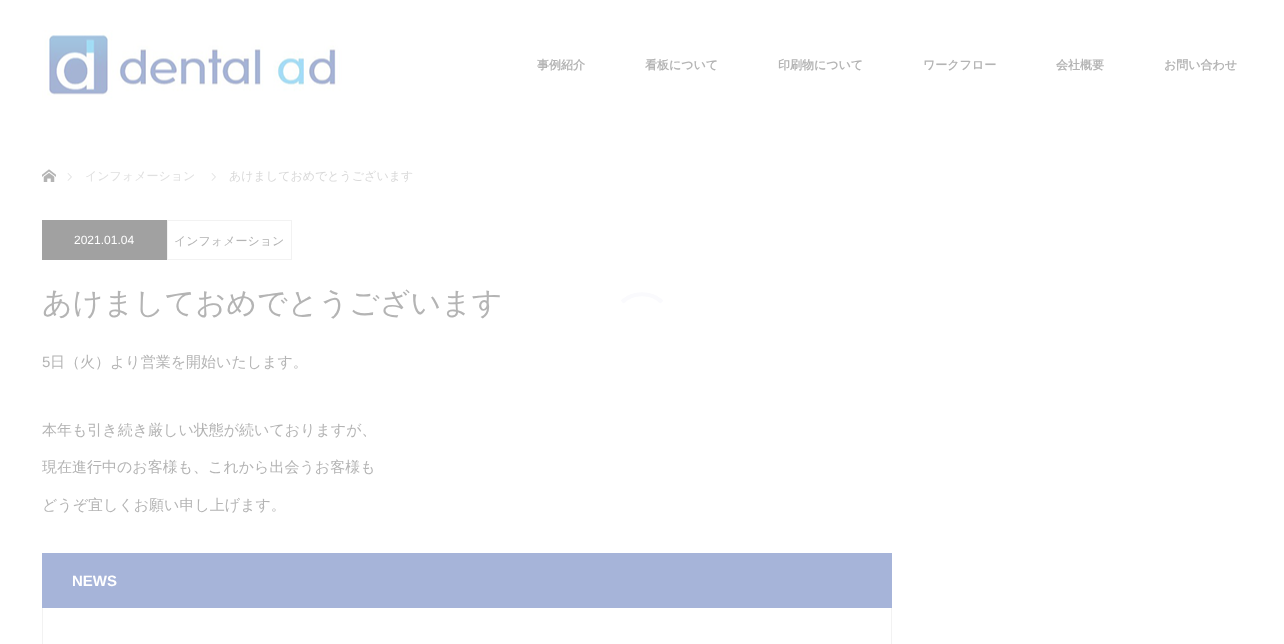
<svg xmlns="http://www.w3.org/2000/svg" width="1284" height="644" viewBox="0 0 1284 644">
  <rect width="100%" height="100%" fill="rgb(255,255,255)"/>
  <image x="42" y="30" width="300" height="70" href="pic1.png"/>
  <g font-family="WenQuanYi Zen Hei" font-size="12" font-weight="bold" fill="rgb(180,180,180)">
    <text x="537" y="69">事例紹介</text>
    <text x="645" y="69">看板について</text>
    <text x="778" y="69">印刷物について</text>
    <text x="923" y="69">ワークフロー</text>
    <text x="1056" y="69">会社概要</text>
    <text x="1164" y="69">お問い合わせ</text>
  </g>
  <image x="42" y="169" width="14" height="13" href="pic2.png"/>
  <image x="67" y="173" width="5" height="8" href="pic3.png"/>
  <text x="85" y="180" font-family="WenQuanYi Zen Hei" font-size="12" font-weight="500" fill="rgb(224,224,224)">インフォメーション</text>
  <image x="211" y="173" width="5" height="8" href="pic3.png"/>
  <text x="229" y="180" font-family="WenQuanYi Zen Hei" font-size="12" font-weight="500" fill="rgb(217,217,217)">あけましておめでとうございます</text>
  <rect x="42" y="220" width="125" height="40" fill="rgb(161,161,161)"/>
  <text x="74" y="244" font-family="Liberation Sans" font-size="12" fill="rgb(255,255,255)">2021.01.04</text>
  <rect x="167.5" y="220.5" width="124" height="39" fill="none" stroke="rgb(242,242,242)"/>
  <text x="174" y="245" font-family="WenQuanYi Zen Hei" font-size="12" font-weight="500" fill="rgb(180,180,180)">インフォメーション</text>
  <text x="42" y="313" font-family="WenQuanYi Zen Hei" font-size="30" font-weight="500" fill="rgb(180,180,180)">あけましておめでとうございます</text>
  <text x="42" y="367" font-family="Liberation Sans" font-size="15" fill="rgb(180,180,180)">5</text>
  <g font-family="WenQuanYi Zen Hei" font-size="15" font-weight="500" fill="rgb(180,180,180)">
    <text x="50" y="367">日（火）より営業を開始いたします。</text>
    <text x="42" y="435">本年も引き続き厳しい状態が続いておりますが、</text>
    <text x="42" y="472">現在進行中のお客様も、これから出会うお客様も</text>
    <text x="42" y="510">どうぞ宜しくお願い申し上げます。</text>
  </g>
  <rect x="42" y="553" width="850" height="55" fill="rgb(166,180,217)"/>
  <text x="72" y="586" font-family="Liberation Sans" font-size="15" font-weight="bold" fill="rgb(255,255,255)">NEWS</text>
  <rect x="891" y="608" width="1" height="36" fill="rgb(242,242,242)"/>
  <rect x="42" y="608" width="1" height="36" fill="rgb(242,242,242)"/>
  <path d="M622 302C633 291.5 651 291.5 662 302" fill="none" stroke="rgb(250,250,253)" stroke-width="4"/>
</svg>
